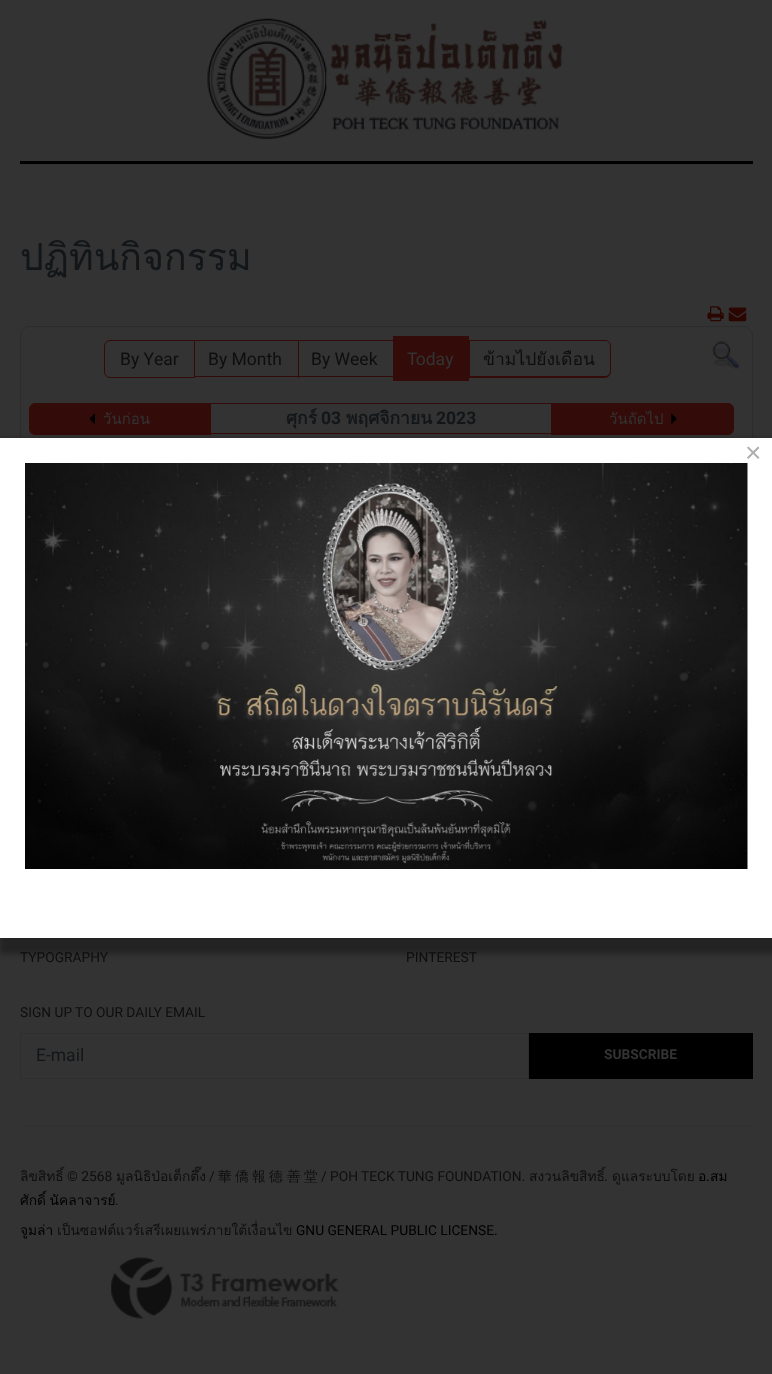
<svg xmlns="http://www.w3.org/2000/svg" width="772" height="1374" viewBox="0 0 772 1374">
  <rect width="100%" height="100%" fill="rgb(51,51,51)"/>
  <image x="207" y="18" width="356" height="121" href="pic1.png"/>
  <rect x="20" y="161" width="733" height="3" fill="rgb(0,0,0)"/>
  <rect x="20" y="164" width="733" height="1" fill="rgb(48,48,48)"/>
  <text x="20" y="270" font-family="Loma" font-size="37.5" fill="rgb(19,22,24)">ปฏิทินกิจกรรม</text>
  <image x="707" y="306" width="17" height="16" href="pic2.png"/>
  <image x="728" y="307" width="19" height="15" href="pic3.png"/>
  <rect x="20.5" y="326.5" width="732" height="226" rx="9.5" fill="none" stroke="rgb(44,44,44)"/>
  <path d="M110 340.5H194.5V377.5H110C107 377.5 104.5 375 104.5 372V346C104.5 343 107 340.5 110 340.5Z" fill="none" stroke="rgb(51,12,10)"/>
  <text x="120" y="365" font-family="Heebo" font-size="17.5" fill="rgb(14,14,14)">By Year</text>
  <rect x="194" y="340" width="105" height="1" fill="rgb(51,12,10)"/>
  <rect x="298" y="340" width="1" height="38" fill="rgb(51,12,10)"/>
  <rect x="194" y="376" width="200" height="1" fill="rgb(51,12,10)"/>
  <text x="208" y="365" font-family="Heebo" font-size="17.5" fill="rgb(14,14,14)">By Month</text>
  <rect x="296" y="340" width="98" height="1" fill="rgb(51,12,10)"/>
  <text x="311" y="365" font-family="Heebo" font-size="17.5" fill="rgb(14,14,14)">By Week</text>
  <rect x="469" y="340" width="1" height="38" fill="rgb(51,12,10)"/>
  <rect x="393" y="336" width="76" height="45" fill="rgb(51,12,10)"/>
  <text x="407" y="365" font-family="Heebo" font-size="17.5" fill="rgb(51,51,51)">Today</text>
  <path d="M469 340H605C608 340 611 343 611 346V371C611 375 608 378 605 378H469ZM469 341H605C608 341 610 343 610 346V371C610 374 608 376 605 376H469Z" fill="rgb(51,12,10)" fill-rule="evenodd"/>
  <text x="483" y="365" font-family="Loma" font-size="17.5" fill="rgb(14,14,14)">ข้ามไปยังเดือน</text>
  <image x="712" y="341" width="27" height="28" href="pic4.png"/>
  <path d="M35 403.5H210.5V434.5H35C32 434.5 29.5 432 29.5 429V409C29.5 406 32 403.5 35 403.5Z" fill="rgb(51,12,10)" stroke="rgb(51,12,10)"/>
  <image x="90" y="413" width="5" height="11" href="pic5.png"/>
  <text x="103" y="424" font-family="Loma" font-size="15" fill="rgb(51,51,51)">วันก่อน</text>
  <rect x="211" y="403" width="340" height="1" fill="rgb(51,12,10)"/>
  <rect x="211" y="433" width="340" height="1" fill="rgb(51,12,10)"/>
  <text x="286" y="424" font-family="Loma" font-size="17.5" font-weight="bold" fill="rgb(19,22,24)">ศุกร์</text>
  <text x="321" y="424" font-family="Heebo" font-size="17.5" font-weight="bold" fill="rgb(19,22,24)">03</text>
  <text x="346" y="424" font-family="Loma" font-size="17.5" font-weight="bold" fill="rgb(19,22,24)">พฤศจิกายน</text>
  <text x="436" y="424" font-family="Heebo" font-size="17.5" font-weight="bold" fill="rgb(19,22,24)">2023</text>
  <path d="M551.5 403.5H728C731 403.5 733.5 406 733.5 409V429C733.5 432 731 434.5 728 434.5H551.5Z" fill="rgb(51,12,10)" stroke="rgb(51,12,10)"/>
  <text x="609" y="424" font-family="Loma" font-size="15" fill="rgb(51,51,51)">วันถัดไป</text>
  <image x="671" y="413" width="6" height="11" href="pic6.png"/>
  <g font-family="Heebo" font-size="13.75" fill="rgb(14,14,14)">
    <text x="20" y="962">TYPOGRAPHY</text>
    <text x="406" y="962">PINTEREST</text>
    <text x="20" y="1017">SIGN UP TO OUR DAILY EMAIL</text>
  </g>
  <rect x="20.5" y="1033.5" width="508" height="45" fill="none" stroke="rgb(46,46,46)"/>
  <text x="36" y="1061" font-family="Heebo" font-size="17.5" fill="rgb(19,22,24)">E-mail</text>
  <rect x="529" y="1033" width="224" height="46" fill="rgb(0,0,0)"/>
  <text x="604" y="1059" font-family="Heebo" font-size="13.75" font-weight="bold" fill="rgb(51,51,51)">SUBSCRIBE</text>
  <rect x="20" y="1125" width="733" height="1" fill="rgb(48,48,48)"/>
  <text x="20" y="1181" font-family="Loma" font-size="13.75" fill="rgb(14,14,14)">ลิขสิทธิ์</text>
  <text x="67" y="1181" font-family="Heebo" font-size="13.75" fill="rgb(14,14,14)">© 2568</text>
  <text x="116" y="1181" font-family="Loma" font-size="13.75" fill="rgb(14,14,14)">มูลนิธิป่อเต็กตึ๊ง</text>
  <text x="209" y="1181" font-family="Heebo" font-size="13.75" fill="rgb(14,14,14)">/</text>
  <g font-family="WenQuanYi Zen Hei" font-size="13.75" font-weight="500" fill="rgb(14,14,14)">
    <text x="218" y="1181">華</text>
    <text x="235" y="1181">僑</text>
    <text x="252" y="1181">報</text>
    <text x="269" y="1181">德</text>
    <text x="287" y="1181">善</text>
    <text x="304" y="1181">堂</text>
  </g>
  <text x="321" y="1181" font-family="Heebo" font-size="13.75" fill="rgb(14,14,14)">/ POH TECK TUNG FOUNDATION.</text>
  <text x="529" y="1181" font-family="Loma" font-size="13.75" fill="rgb(14,14,14)">สงวนลิขสิทธิ์</text>
  <text x="604" y="1181" font-family="Heebo" font-size="13.75" fill="rgb(14,14,14)">.</text>
  <text x="612" y="1181" font-family="Loma" font-size="13.75" fill="rgb(14,14,14)">ดูแลระบบโดย</text>
  <g font-family="Loma" font-size="13.75" fill="rgb(0,0,0)">
    <text x="698" y="1181">อ</text>
    <text x="710" y="1181">สม</text>
  </g>
  <text x="706" y="1181" font-family="Heebo" font-size="13.75" fill="rgb(0,0,0)">.</text>
  <text x="20" y="1205" word-spacing="-1" font-family="Loma" font-size="13.75" fill="rgb(0,0,0)">ศักดิ์ นัคลาจารย์</text>
  <text x="115" y="1205" font-family="Heebo" font-size="13.75" fill="rgb(14,14,14)">.</text>
  <text x="20" y="1235" font-family="Loma" font-size="13.75" fill="rgb(0,0,0)">จูมล่า</text>
  <text x="57" y="1235" font-family="Loma" font-size="13.75" fill="rgb(14,14,14)">เป็นซอฟต์แวร์เสรีเผยแพร่ภายใต้เงื่อนไข</text>
  <text x="296" y="1235" font-family="Heebo" font-size="13.75" fill="rgb(0,0,0)">GNU GENERAL PUBLIC LICENSE.</text>
  <image x="111" y="1257" width="228" height="62" href="pic7.png"/>
  <rect x="0" y="439" width="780" height="515" fill="rgba(0,0,1,0.3)" filter="blur(2.5px)"/>
  <rect x="0" y="438" width="772" height="500" fill="rgb(255,255,255)"/>
  <text x="745" y="462" font-family="Liberation Sans" font-size="28" fill="rgb(174,174,174)">×</text>
  <image x="25" y="463" width="723" height="406" href="pic8.png"/>
</svg>
